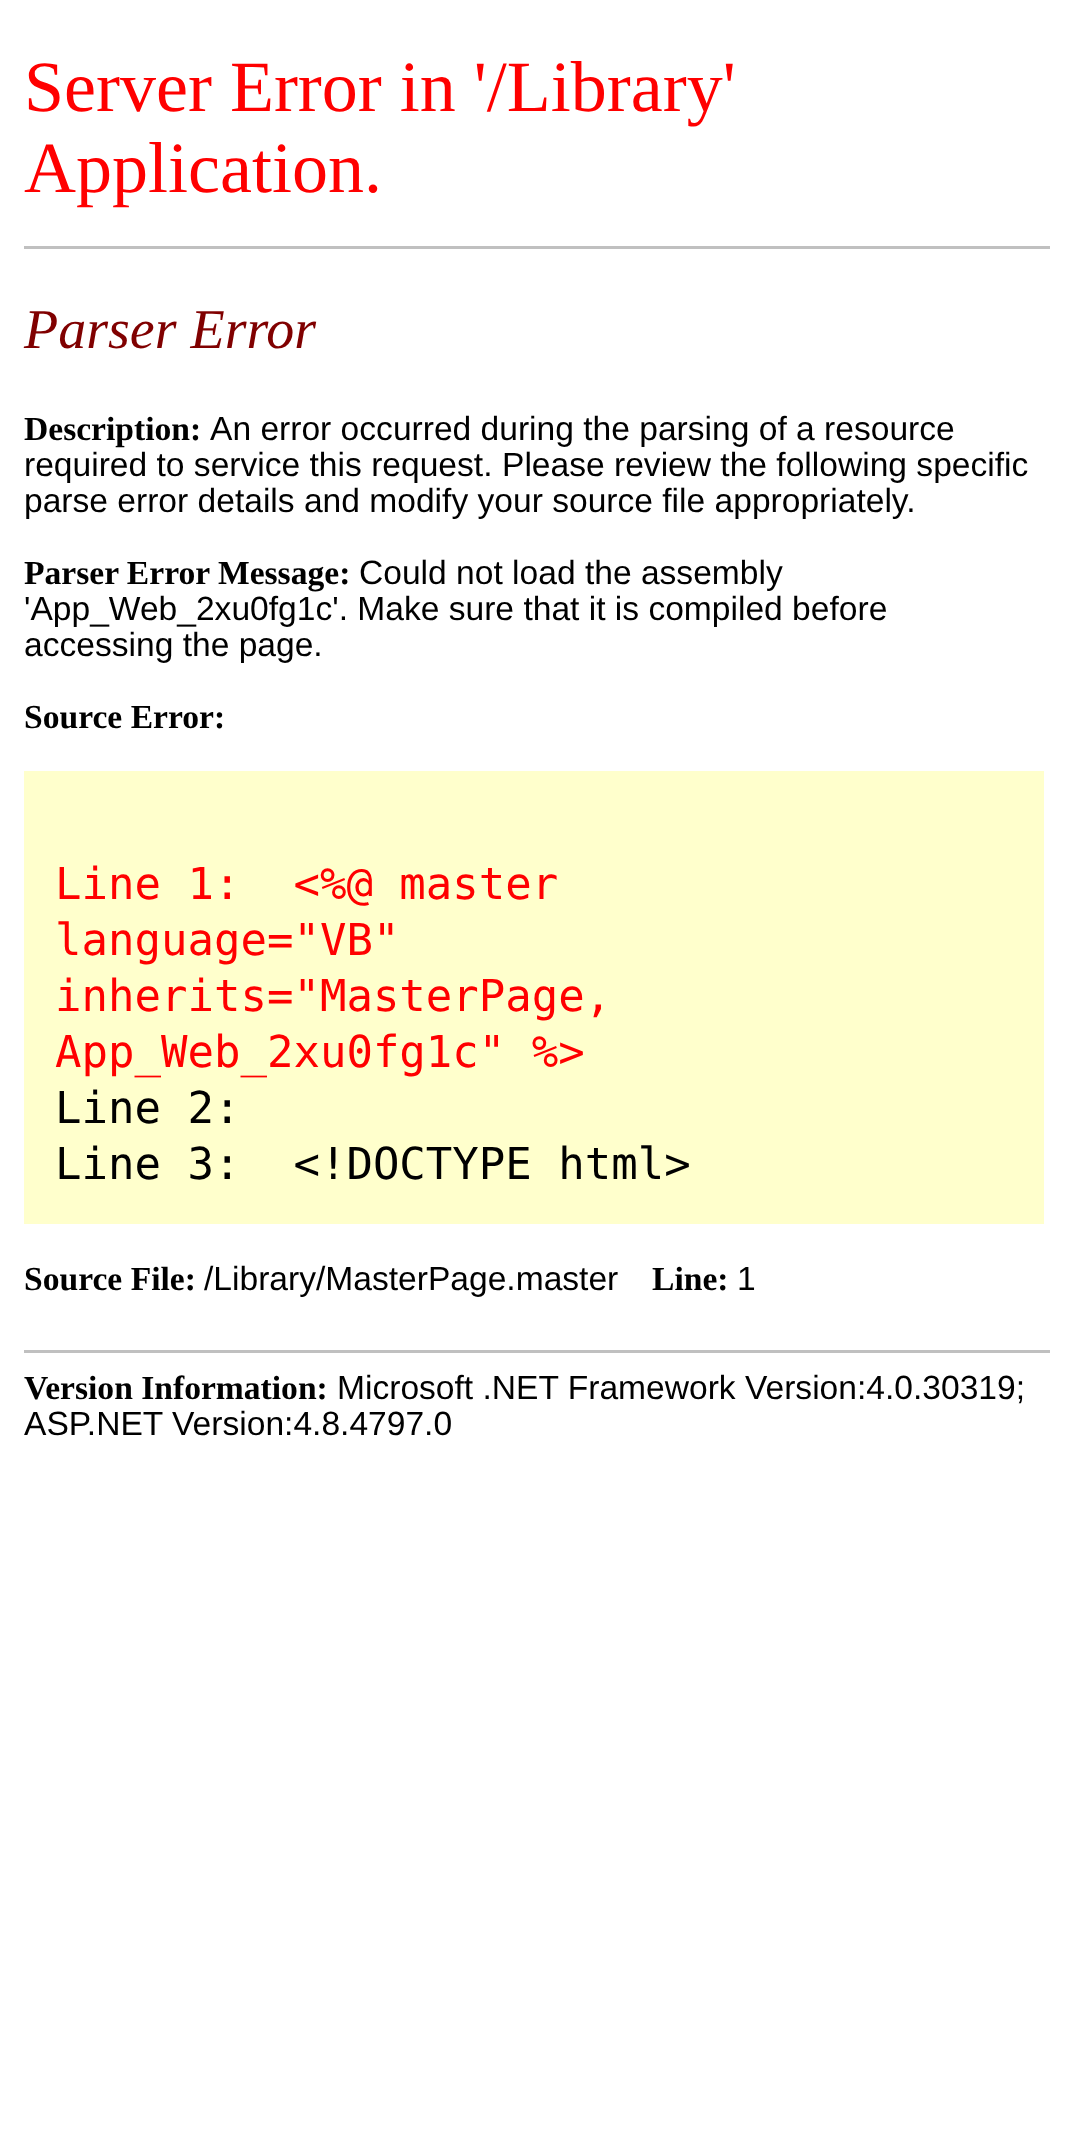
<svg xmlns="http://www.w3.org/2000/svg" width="1066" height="2138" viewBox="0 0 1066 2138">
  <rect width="100%" height="100%" fill="rgb(255,255,255)"/>
  <g font-family="Liberation Serif" font-size="72" fill="rgb(255,0,0)">
    <text>
      <tspan x="24" y="111">Server Error in '/Library'</tspan>
      <tspan x="24" y="192">Application.</tspan>
    </text>
  </g>
  <rect x="24" y="246" width="1026" height="3" fill="rgb(192,192,192)"/>
  <text x="24" y="348" font-family="Liberation Serif" font-size="56" font-style="italic" fill="rgb(128,0,0)">Parser Error</text>
  <text x="24" y="440" font-family="Liberation Serif" font-size="33.6" font-weight="bold" fill="rgb(0,0,0)">Description:</text>
  <g font-family="Liberation Sans" font-size="33.6" fill="rgb(0,0,0)">
    <text x="210" y="440">An error occurred during the parsing of a resource</text>
    <text x="24" y="476">required to service this request.</text>
    <text x="502" y="476">Please review the following specific</text>
    <text x="24" y="512">parse error details and modify your source file appropriately.</text>
  </g>
  <text x="24" y="584" font-family="Liberation Serif" font-size="33.6" font-weight="bold" fill="rgb(0,0,0)">Parser Error Message:</text>
  <g font-family="Liberation Sans" font-size="33.6" fill="rgb(0,0,0)">
    <text x="359" y="584">Could not load the assembly</text>
    <text>
      <tspan x="24" y="620">'App_Web_2xu0fg1c'. Make sure that it is compiled before</tspan>
      <tspan x="24" y="656">accessing the page.</tspan>
    </text>
  </g>
  <text x="24" y="728" font-family="Liberation Serif" font-size="33.6" font-weight="bold" fill="rgb(0,0,0)">Source Error:</text>
  <rect x="24" y="771" width="1020" height="453" fill="rgb(255,255,204)"/>
  <g font-family="DejaVu Sans Mono" font-size="44" fill="rgb(255,0,0)">
    <text xml:space="preserve"><tspan x="55" y="899">Line 1:  &lt;%@ master</tspan><tspan x="55" y="955">language="VB"</tspan><tspan x="55" y="1011">inherits="MasterPage,</tspan><tspan x="55" y="1067">App_Web_2xu0fg1c" %&gt;</tspan></text>
  </g>
  <g font-family="DejaVu Sans Mono" font-size="44" fill="rgb(0,0,0)">
    <text xml:space="preserve"><tspan x="55" y="1123">Line 2:</tspan><tspan x="55" y="1179">Line 3:  &lt;!DOCTYPE html&gt;</tspan></text>
  </g>
  <text x="24" y="1290" font-family="Liberation Serif" font-size="33.6" font-weight="bold" fill="rgb(0,0,0)">Source File:</text>
  <text x="204" y="1290" font-family="Liberation Sans" font-size="33.6" fill="rgb(0,0,0)">/Library/MasterPage.master</text>
  <text x="652" y="1290" font-family="Liberation Serif" font-size="33.6" font-weight="bold" fill="rgb(0,0,0)">Line:</text>
  <text x="737" y="1290" font-family="Liberation Sans" font-size="33.6" fill="rgb(0,0,0)">1</text>
  <rect x="24" y="1350" width="1026" height="3" fill="rgb(192,192,192)"/>
  <text x="24" y="1399" font-family="Liberation Serif" font-size="33.6" font-weight="bold" fill="rgb(0,0,0)">Version Information:</text>
  <g font-family="Liberation Sans" font-size="33.6" fill="rgb(0,0,0)">
    <text x="337" y="1399">Microsoft .NET Framework Version:4.0.30319;</text>
    <text x="24" y="1435">ASP.NET Version:4.8.4797.0</text>
  </g>
</svg>
